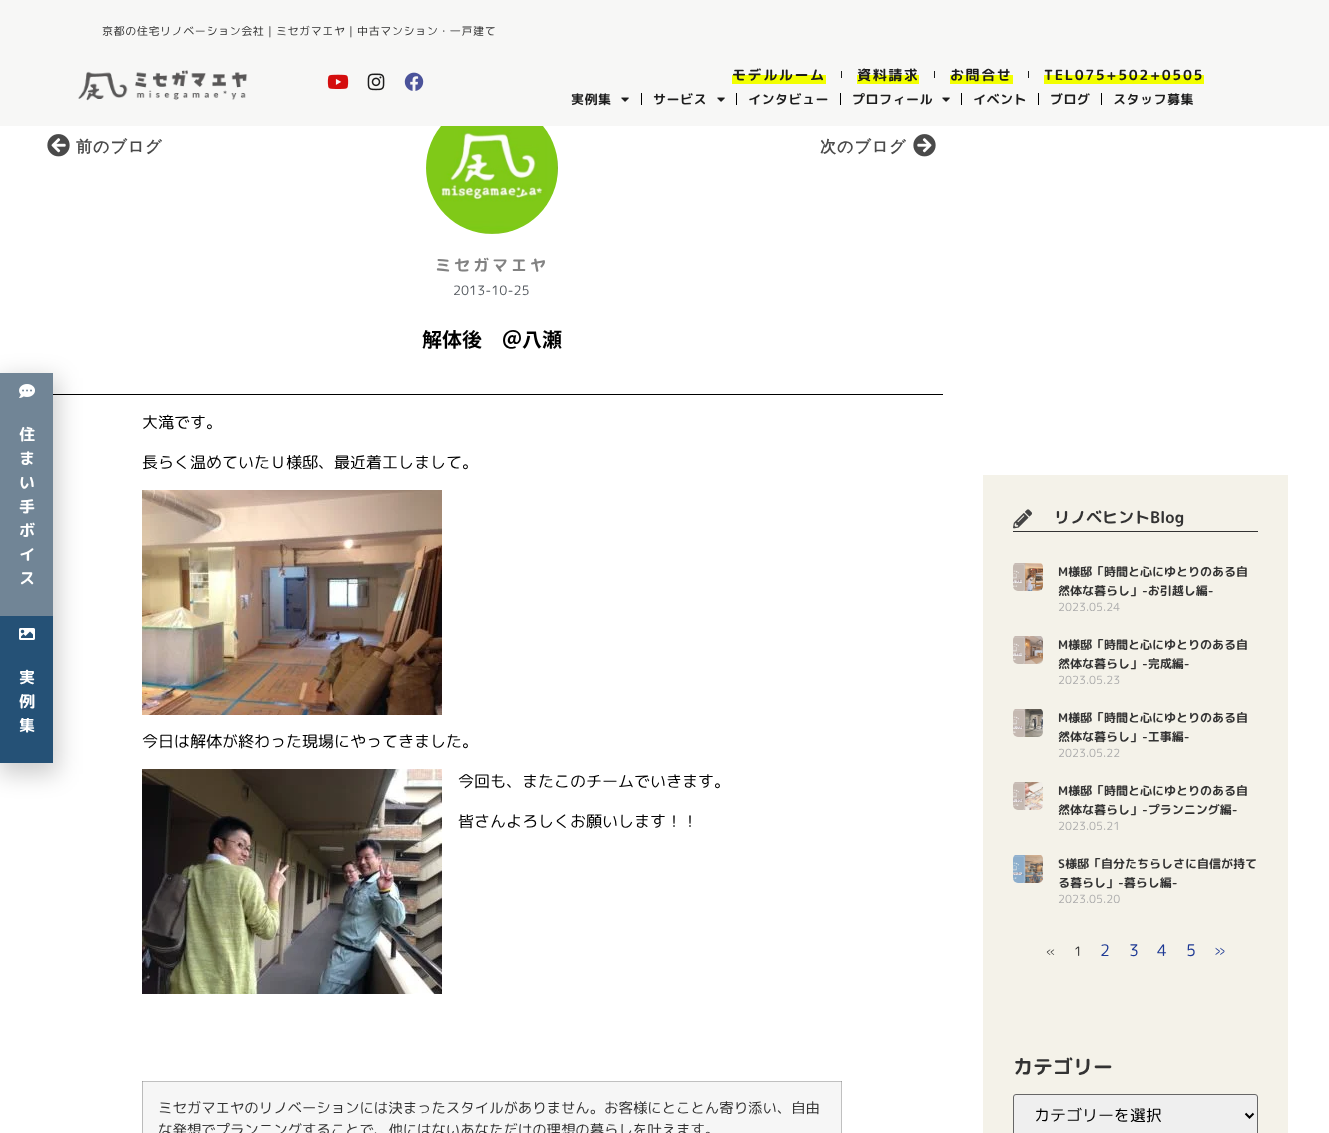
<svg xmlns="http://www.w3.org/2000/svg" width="1329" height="1133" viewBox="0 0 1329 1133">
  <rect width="100%" height="100%" fill="rgb(255,255,255)"/>
  <rect x="841" y="1081" width="1" height="52" fill="rgb(192,192,192)"/>
  <rect x="0" y="0" width="1329" height="126" fill="rgb(247,247,246)"/>
  <text x="102" y="35" font-family="'Rounded Mplus 1c'" font-size="11" letter-spacing="0.6" fill="rgb(51,51,51)">京都の住宅リノベーション会社 | ミセガマエヤ | 中古マンション・一戸建て</text>
  <image x="78" y="70" width="170" height="31" href="pic1.png"/>
  <image x="327" y="74" width="22" height="15" href="pic2.png"/>
  <image x="367" y="73" width="18" height="18" href="pic3.png"/>
  <image x="404" y="72" width="20" height="19" href="pic4.png"/>
  <rect x="732" y="75" width="94" height="9" fill="rgb(242,255,0)"/>
  <text x="732" y="80" font-family="'Rounded Mplus 1c Bold'" font-size="14" font-weight="bold" letter-spacing="1.6" fill="rgb(29,29,29)">モデルルーム</text>
  <rect x="841" y="71" width="1" height="7" fill="rgb(29,29,29)"/>
  <rect x="857" y="75" width="62" height="9" fill="rgb(242,255,0)"/>
  <text x="857" y="80" font-family="'Rounded Mplus 1c Bold'" font-size="14" font-weight="bold" letter-spacing="1.6" fill="rgb(29,29,29)">資料請求</text>
  <rect x="934" y="71" width="1" height="7" fill="rgb(29,29,29)"/>
  <rect x="950" y="75" width="63" height="9" fill="rgb(242,255,0)"/>
  <text x="950" y="80" font-family="'Rounded Mplus 1c Bold'" font-size="14" font-weight="bold" letter-spacing="1.6" fill="rgb(29,29,29)">お問合せ</text>
  <rect x="1028" y="71" width="1" height="7" fill="rgb(29,29,29)"/>
  <rect x="1044" y="75" width="160" height="9" fill="rgb(242,255,0)"/>
  <text x="1044" y="80" font-family="'Rounded Mplus 1c Bold'" font-size="14" font-weight="bold" letter-spacing="1.6" fill="rgb(29,29,29)">TEL075+502+0505</text>
  <text x="571" y="104" font-family="'Rounded Mplus 1c Bold'" font-size="13" font-weight="bold" letter-spacing="0.5" fill="rgb(29,29,29)">実例集</text>
  <image x="621" y="97" width="8" height="5" href="pic5.png"/>
  <rect x="641" y="93" width="1" height="12" fill="rgb(0,0,0)"/>
  <text x="653" y="104" font-family="'Rounded Mplus 1c Bold'" font-size="13" font-weight="bold" letter-spacing="0.5" fill="rgb(29,29,29)">サービス</text>
  <image x="717" y="97" width="8" height="5" href="pic5.png"/>
  <rect x="736" y="93" width="1" height="12" fill="rgb(0,0,0)"/>
  <text x="748" y="104" font-family="'Rounded Mplus 1c Bold'" font-size="13" font-weight="bold" letter-spacing="0.5" fill="rgb(29,29,29)">インタビュー</text>
  <rect x="840" y="93" width="1" height="12" fill="rgb(0,0,0)"/>
  <text x="852" y="104" font-family="'Rounded Mplus 1c Bold'" font-size="13" font-weight="bold" letter-spacing="0.5" fill="rgb(29,29,29)">プロフィール</text>
  <image x="942" y="97" width="8" height="5" href="pic5.png"/>
  <rect x="961" y="93" width="1" height="12" fill="rgb(0,0,0)"/>
  <text x="973" y="104" font-family="'Rounded Mplus 1c Bold'" font-size="13" font-weight="bold" letter-spacing="0.5" fill="rgb(29,29,29)">イベント</text>
  <rect x="1038" y="93" width="1" height="12" fill="rgb(0,0,0)"/>
  <text x="1050" y="104" font-family="'Rounded Mplus 1c Bold'" font-size="13" font-weight="bold" letter-spacing="0.5" fill="rgb(29,29,29)">ブログ</text>
  <rect x="1101" y="93" width="1" height="12" fill="rgb(0,0,0)"/>
  <text x="1113" y="104" font-family="'Rounded Mplus 1c Bold'" font-size="13" font-weight="bold" letter-spacing="0.5" fill="rgb(29,29,29)">スタッフ募集</text>
  <rect x="53" y="394" width="890" height="1" fill="rgb(0,0,0)"/>
  <rect x="-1" y="378" width="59" height="396" fill="rgba(0,0,0,0.2)" filter="blur(11.5px)"/>
  <rect x="0" y="373" width="53" height="243" fill="rgb(113,133,150)"/>
  <image x="19" y="384" width="16" height="14" href="pic6.png"/>
  <g font-family="'Rounded Mplus 1c Bold'" font-size="16" font-weight="bold" letter-spacing="-1" fill="rgb(255,255,255)">
    <text>
      <tspan x="19" y="440">住</tspan>
      <tspan x="19" y="464">ま</tspan>
      <tspan x="19" y="488">い</tspan>
      <tspan x="19" y="512">手</tspan>
      <tspan x="19" y="536">ボ</tspan>
      <tspan x="19" y="560">イ</tspan>
      <tspan x="19" y="584">ス</tspan>
    </text>
  </g>
  <rect x="0" y="616" width="53" height="147" fill="rgb(37,81,118)"/>
  <image x="19" y="628" width="16" height="12" href="pic7.png"/>
  <g font-family="'Rounded Mplus 1c Bold'" font-size="16" font-weight="bold" letter-spacing="-1" fill="rgb(255,255,255)">
    <text>
      <tspan x="19" y="683">実</tspan>
      <tspan x="19" y="707">例</tspan>
      <tspan x="19" y="731">集</tspan>
    </text>
  </g>
  <image x="47" y="134" width="23" height="23" href="pic8.png"/>
  <g font-family="WenQuanYi Zen Hei" font-size="16" font-weight="bold" letter-spacing="1" fill="rgb(74,74,74)">
    <text x="76" y="152">前のブログ</text>
    <text x="820" y="152">次のブログ</text>
  </g>
  <image x="913" y="134" width="23" height="23" href="pic9.png"/>
  <image x="426" y="126" width="132" height="108" href="pic10.png"/>
  <text x="435" y="271" font-family="'Rounded Mplus 1c Bold'" font-size="16" font-weight="bold" letter-spacing="3" fill="rgb(130,130,130)">ミセガマエヤ</text>
  <text x="453" y="295" font-family="'Rounded Mplus 1c'" font-size="13" fill="rgb(84,89,95)">2013-10-25</text>
  <text x="422" y="347" font-family="Noto Sans JP" font-size="20" font-weight="bold" fill="rgb(0,0,0)">解体後　＠八瀬</text>
  <g font-family="'Rounded Mplus 1c'" font-size="16" fill="rgb(0,0,0)">
    <text x="142" y="428">大滝です。</text>
    <text x="142" y="468">長らく温めていたＵ様邸、最近着工しまして。</text>
  </g>
  <image x="142" y="490" width="300" height="225" href="pic11.png"/>
  <text x="142" y="747" font-family="'Rounded Mplus 1c'" font-size="16" fill="rgb(0,0,0)">今日は解体が終わった現場にやってきました。</text>
  <image x="142" y="769" width="300" height="225" href="pic12.png"/>
  <g font-family="'Rounded Mplus 1c'" font-size="16" fill="rgb(0,0,0)">
    <text x="458" y="787">今回も、またこのチームでいきます。</text>
    <text x="458" y="827">皆さんよろしくお願いします！！</text>
  </g>
  <rect x="143" y="1082" width="698" height="51" fill="rgb(246,246,246)"/>
  <rect x="142" y="1082" width="1" height="51" fill="rgb(187,187,187)"/>
  <rect x="142" y="1081" width="700" height="1" fill="rgb(192,192,192)"/>
  <rect x="142" y="1081" width="1" height="1" fill="rgb(160,160,160)"/>
  <rect x="841" y="1081" width="1" height="1" fill="rgb(160,160,160)"/>
  <g font-family="'Rounded Mplus 1c'" font-size="14.4" fill="rgb(51,51,51)">
    <text>
      <tspan x="158" y="1113">ミセガマエヤのリノベーションには決まったスタイルがありません。お客様にとことん寄り添い、自由</tspan>
      <tspan x="158" y="1135">な発想でプランニングすることで、他にはないあなただけの理想の暮らしを叶えます。</tspan>
    </text>
  </g>
  <rect x="983" y="475" width="305" height="658" fill="rgb(244,242,233)"/>
  <rect x="1013" y="531" width="245" height="1" fill="rgb(51,51,51)"/>
  <image x="1013" y="509" width="19" height="20" href="pic13.png"/>
  <text x="1054" y="523" font-family="'Rounded Mplus 1c Bold'" font-size="16" font-weight="bold" fill="rgb(51,51,51)">リノベヒントBlog</text>
  <image x="1013" y="563" width="30" height="28" href="pic14.png"/>
  <g font-family="'Rounded Mplus 1c Bold'" font-size="12" font-weight="bold" fill="rgb(51,51,51)">
    <text>
      <tspan x="1058" y="576">M様邸「時間と心にゆとりのある自</tspan>
      <tspan x="1058" y="595">然体な暮らし」-お引越し編-</tspan>
    </text>
  </g>
  <text x="1058" y="611" font-family="'Rounded Mplus 1c'" font-size="11.25" fill="rgb(173,173,173)">2023.05.24</text>
  <image x="1013" y="636" width="30" height="28" href="pic15.png"/>
  <g font-family="'Rounded Mplus 1c Bold'" font-size="12" font-weight="bold" fill="rgb(51,51,51)">
    <text>
      <tspan x="1058" y="649">M様邸「時間と心にゆとりのある自</tspan>
      <tspan x="1058" y="668">然体な暮らし」-完成編-</tspan>
    </text>
  </g>
  <text x="1058" y="684" font-family="'Rounded Mplus 1c'" font-size="11.25" fill="rgb(173,173,173)">2023.05.23</text>
  <image x="1013" y="709" width="30" height="28" href="pic16.png"/>
  <g font-family="'Rounded Mplus 1c Bold'" font-size="12" font-weight="bold" fill="rgb(51,51,51)">
    <text>
      <tspan x="1058" y="722">M様邸「時間と心にゆとりのある自</tspan>
      <tspan x="1058" y="741">然体な暮らし」-工事編-</tspan>
    </text>
  </g>
  <text x="1058" y="757" font-family="'Rounded Mplus 1c'" font-size="11.25" fill="rgb(173,173,173)">2023.05.22</text>
  <image x="1013" y="782" width="30" height="28" href="pic17.png"/>
  <g font-family="'Rounded Mplus 1c Bold'" font-size="12" font-weight="bold" fill="rgb(51,51,51)">
    <text>
      <tspan x="1058" y="795">M様邸「時間と心にゆとりのある自</tspan>
      <tspan x="1058" y="814">然体な暮らし」-プランニング編-</tspan>
    </text>
  </g>
  <text x="1058" y="830" font-family="'Rounded Mplus 1c'" font-size="11.25" fill="rgb(173,173,173)">2023.05.21</text>
  <image x="1013" y="855" width="30" height="28" href="pic18.png"/>
  <g font-family="'Rounded Mplus 1c Bold'" font-size="12" font-weight="bold" fill="rgb(51,51,51)">
    <text>
      <tspan x="1058" y="868">S様邸「自分たちらしさに自信が持て</tspan>
      <tspan x="1058" y="887">る暮らし」-暮らし編-</tspan>
    </text>
  </g>
  <text x="1058" y="903" font-family="'Rounded Mplus 1c'" font-size="11.25" fill="rgb(173,173,173)">2023.05.20</text>
  <g font-family="'Rounded Mplus 1c'" font-size="13" fill="rgb(51,51,51)">
    <text x="1046" y="956">«</text>
    <text x="1074" y="956">1</text>
  </g>
  <g font-family="'Rounded Mplus 1c'" font-size="16" fill="rgb(29,57,148)">
    <text x="1100" y="956">2</text>
    <text x="1129" y="956">3</text>
    <text x="1157" y="956">4</text>
    <text x="1186" y="956">5</text>
    <text x="1214" y="956">»</text>
  </g>
  <text x="1013" y="1074" font-family="'Rounded Mplus 1c Bold'" font-size="20" font-weight="bold" fill="rgb(51,51,51)">カテゴリー</text>
  <rect x="1013.5" y="1094.5" width="244" height="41" rx="2.5" fill="rgb(239,239,239)" stroke="rgb(102,102,102)"/>
  <path d="M1245.5 1113.5L1249.5 1117.5L1253.5 1113.5" fill="none" stroke="rgb(0,0,0)" stroke-width="2"/>
  <text x="1034" y="1121" font-family="'Rounded Mplus 1c'" font-size="16" fill="rgb(0,0,0)">カテゴリーを選択</text>
</svg>
